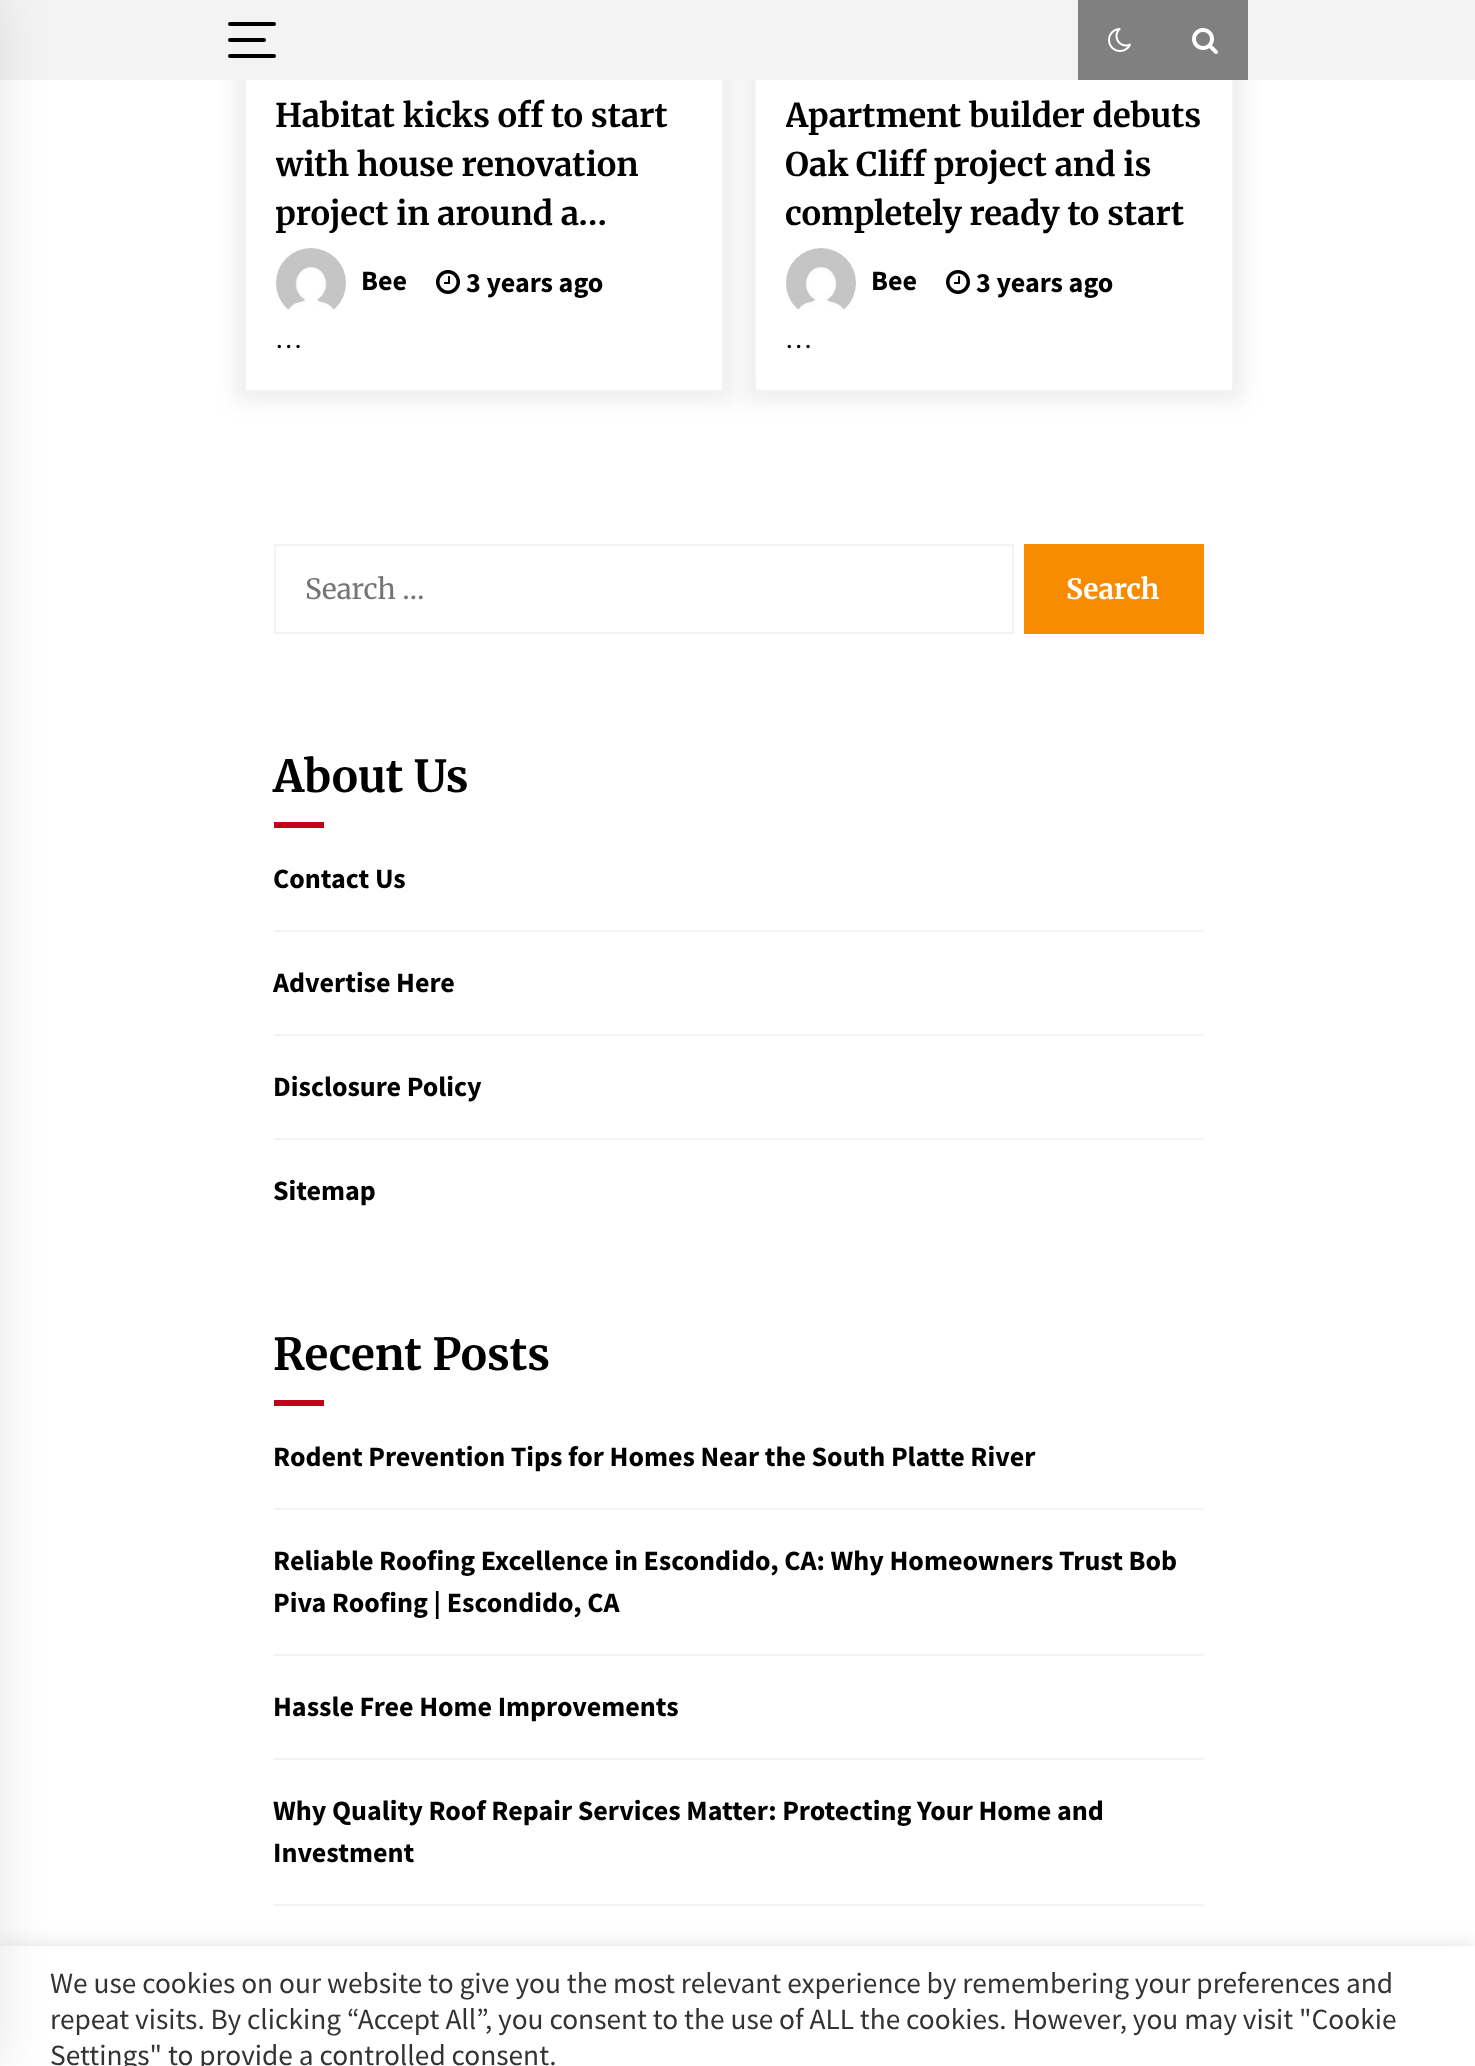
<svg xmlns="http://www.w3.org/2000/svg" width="1475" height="2066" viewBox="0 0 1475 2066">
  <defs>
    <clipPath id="clip1"><path d="M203 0H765V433H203ZM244-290H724V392H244Z" clip-rule="evenodd"/></clipPath>
    <clipPath id="clip2"><path d="M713 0H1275V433H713ZM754-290H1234V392H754Z" clip-rule="evenodd"/></clipPath>
    <clipPath id="clip3"><rect x="276" y="90" width="416" height="148"/></clipPath>
    <clipPath id="clip4"><rect x="786" y="90" width="416" height="148"/></clipPath>
  </defs>
  <rect width="100%" height="100%" fill="rgb(255,255,255)"/>
  <g clip-path="url(#clip1)">
    <rect x="234" y="-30" width="500" height="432" fill="rgb(238,238,238)" filter="blur(10px)"/>
  </g>
  <rect x="245" y="-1" width="478" height="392" fill="none" stroke="rgb(243,243,243)" stroke-width="2"/>
  <g clip-path="url(#clip2)">
    <rect x="744" y="-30" width="500" height="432" fill="rgb(238,238,238)" filter="blur(10px)"/>
  </g>
  <rect x="755" y="-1" width="478" height="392" fill="none" stroke="rgb(243,243,243)" stroke-width="2"/>
  <rect x="0" y="0" width="1475" height="80" fill="rgb(243,243,243)"/>
  <rect x="0" y="1944" width="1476" height="120" fill="rgba(172,171,171,0.3)" filter="blur(10px)"/>
  <rect x="0" y="1946" width="1475" height="120" fill="rgb(255,255,255)"/>
  <rect x="-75" y="0" width="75" height="2066" fill="rgba(0,0,0,0.1)" filter="blur(25px)"/>
  <rect x="228" y="22" width="48" height="4" rx="2" fill="rgb(0,0,0)"/>
  <rect x="228" y="54" width="48" height="4" rx="2" fill="rgb(0,0,0)"/>
  <rect x="228" y="38" width="38" height="4" rx="2" fill="rgb(0,0,0)"/>
  <rect x="1078" y="0" width="170" height="80" fill="rgb(128,128,128)"/>
  <image x="1108" y="28" width="23" height="24" href="pic1.png"/>
  <image x="1192" y="28" width="26" height="26" href="pic2.png"/>
  <text x="275" y="127" font-family="Merriweather" font-size="32.75" font-weight="bold" fill="rgb(0,0,0)">Habitat kicks off to start</text>
  <g clip-path="url(#clip3)">
    <text x="275" y="176" font-family="Merriweather" font-size="32.75" font-weight="bold" fill="rgb(0,0,0)">with house renovation</text>
  </g>
  <text x="275" y="225" font-family="Merriweather" font-size="32.75" font-weight="bold" fill="rgb(0,0,0)">project in around a…</text>
  <image x="276" y="248" width="70" height="62" href="pic3.png"/>
  <text x="361" y="290" font-family="Source Sans Pro" font-size="28" font-weight="bold" fill="rgb(0,0,0)">Bee</text>
  <image x="436" y="270" width="24" height="24" href="pic4.png"/>
  <text x="466" y="292" font-family="Source Sans Pro" font-size="28" font-weight="bold" fill="rgb(0,0,0)">3 years ago</text>
  <text x="275" y="348" font-family="Source Sans Pro" font-size="28" fill="rgb(0,0,0)">…</text>
  <g clip-path="url(#clip4)">
    <text x="785" y="127" font-family="Merriweather" font-size="32.75" font-weight="bold" fill="rgb(0,0,0)">Apartment builder debuts</text>
  </g>
  <g font-family="Merriweather" font-size="32.75" font-weight="bold" fill="rgb(0,0,0)">
    <text>
      <tspan x="785" y="176">Oak Cliff project and is</tspan>
      <tspan x="785" y="225">completely ready to start</tspan>
    </text>
  </g>
  <image x="786" y="248" width="70" height="62" href="pic5.png"/>
  <text x="871" y="290" font-family="Source Sans Pro" font-size="28" font-weight="bold" fill="rgb(0,0,0)">Bee</text>
  <image x="946" y="270" width="24" height="24" href="pic4.png"/>
  <text x="976" y="292" font-family="Source Sans Pro" font-size="28" font-weight="bold" fill="rgb(0,0,0)">3 years ago</text>
  <text x="785" y="348" font-family="Source Sans Pro" font-size="28" fill="rgb(0,0,0)">…</text>
  <rect x="275" y="545" width="738" height="88" fill="none" stroke="rgb(243,243,243)" stroke-width="2"/>
  <text x="305" y="599" font-family="Merriweather" font-size="28" fill="rgb(117,117,117)">Search …</text>
  <rect x="1024" y="544" width="180" height="90" fill="rgb(248,140,0)"/>
  <text x="1066" y="599" font-family="Merriweather" font-size="28" font-weight="bold" fill="rgb(255,255,255)">Search</text>
  <text x="273" y="792" font-family="Merriweather" font-size="44" font-weight="bold" fill="rgb(0,0,0)">About Us</text>
  <rect x="274" y="822" width="50" height="6" fill="rgb(194,0,23)"/>
  <rect x="274" y="930" width="930" height="2" fill="rgb(243,243,243)"/>
  <text x="273" y="888" font-family="Source Sans Pro" font-size="28" font-weight="bold" fill="rgb(0,0,0)">Contact Us</text>
  <rect x="274" y="1034" width="930" height="2" fill="rgb(243,243,243)"/>
  <text x="273" y="992" font-family="Source Sans Pro" font-size="28" font-weight="bold" fill="rgb(0,0,0)">Advertise Here</text>
  <rect x="274" y="1138" width="930" height="2" fill="rgb(243,243,243)"/>
  <g font-family="Source Sans Pro" font-size="28" font-weight="bold" fill="rgb(0,0,0)">
    <text x="273" y="1096">Disclosure Policy</text>
    <text x="273" y="1200">Sitemap</text>
  </g>
  <text x="273" y="1370" font-family="Merriweather" font-size="44" font-weight="bold" fill="rgb(0,0,0)">Recent Posts</text>
  <rect x="274" y="1400" width="50" height="6" fill="rgb(194,0,23)"/>
  <rect x="274" y="1508" width="930" height="2" fill="rgb(243,243,243)"/>
  <text x="273" y="1466" font-family="Source Sans Pro" font-size="28" font-weight="bold" fill="rgb(0,0,0)">Rodent Prevention Tips for Homes Near the South Platte River</text>
  <rect x="274" y="1654" width="930" height="2" fill="rgb(243,243,243)"/>
  <g font-family="Source Sans Pro" font-size="28" font-weight="bold" fill="rgb(0,0,0)">
    <text>
      <tspan x="273" y="1570">Reliable Roofing Excellence in Escondido, CA: Why Homeowners Trust Bob</tspan>
      <tspan x="273" y="1612">Piva Roofing | Escondido, CA</tspan>
    </text>
  </g>
  <rect x="274" y="1758" width="930" height="2" fill="rgb(243,243,243)"/>
  <text x="273" y="1716" font-family="Source Sans Pro" font-size="28" font-weight="bold" fill="rgb(0,0,0)">Hassle Free Home Improvements</text>
  <rect x="274" y="1904" width="930" height="2" fill="rgb(243,243,243)"/>
  <g font-family="Source Sans Pro" font-size="28" font-weight="bold" fill="rgb(0,0,0)">
    <text>
      <tspan x="273" y="1820">Why Quality Roof Repair Services Matter: Protecting Your Home and</tspan>
      <tspan x="273" y="1862">Investment</tspan>
    </text>
  </g>
  <g font-family="Source Sans Pro" font-size="29.35" fill="rgb(51,51,51)">
    <text>
      <tspan x="50" y="1993">We use cookies on our website to give you the most relevant experience by remembering your preferences and</tspan>
      <tspan x="50" y="2029">repeat visits. By clicking “Accept All”, you consent to the use of ALL the cookies. However, you may visit "Cookie</tspan>
      <tspan x="50" y="2065">Settings" to provide a controlled consent.</tspan>
    </text>
  </g>
</svg>
